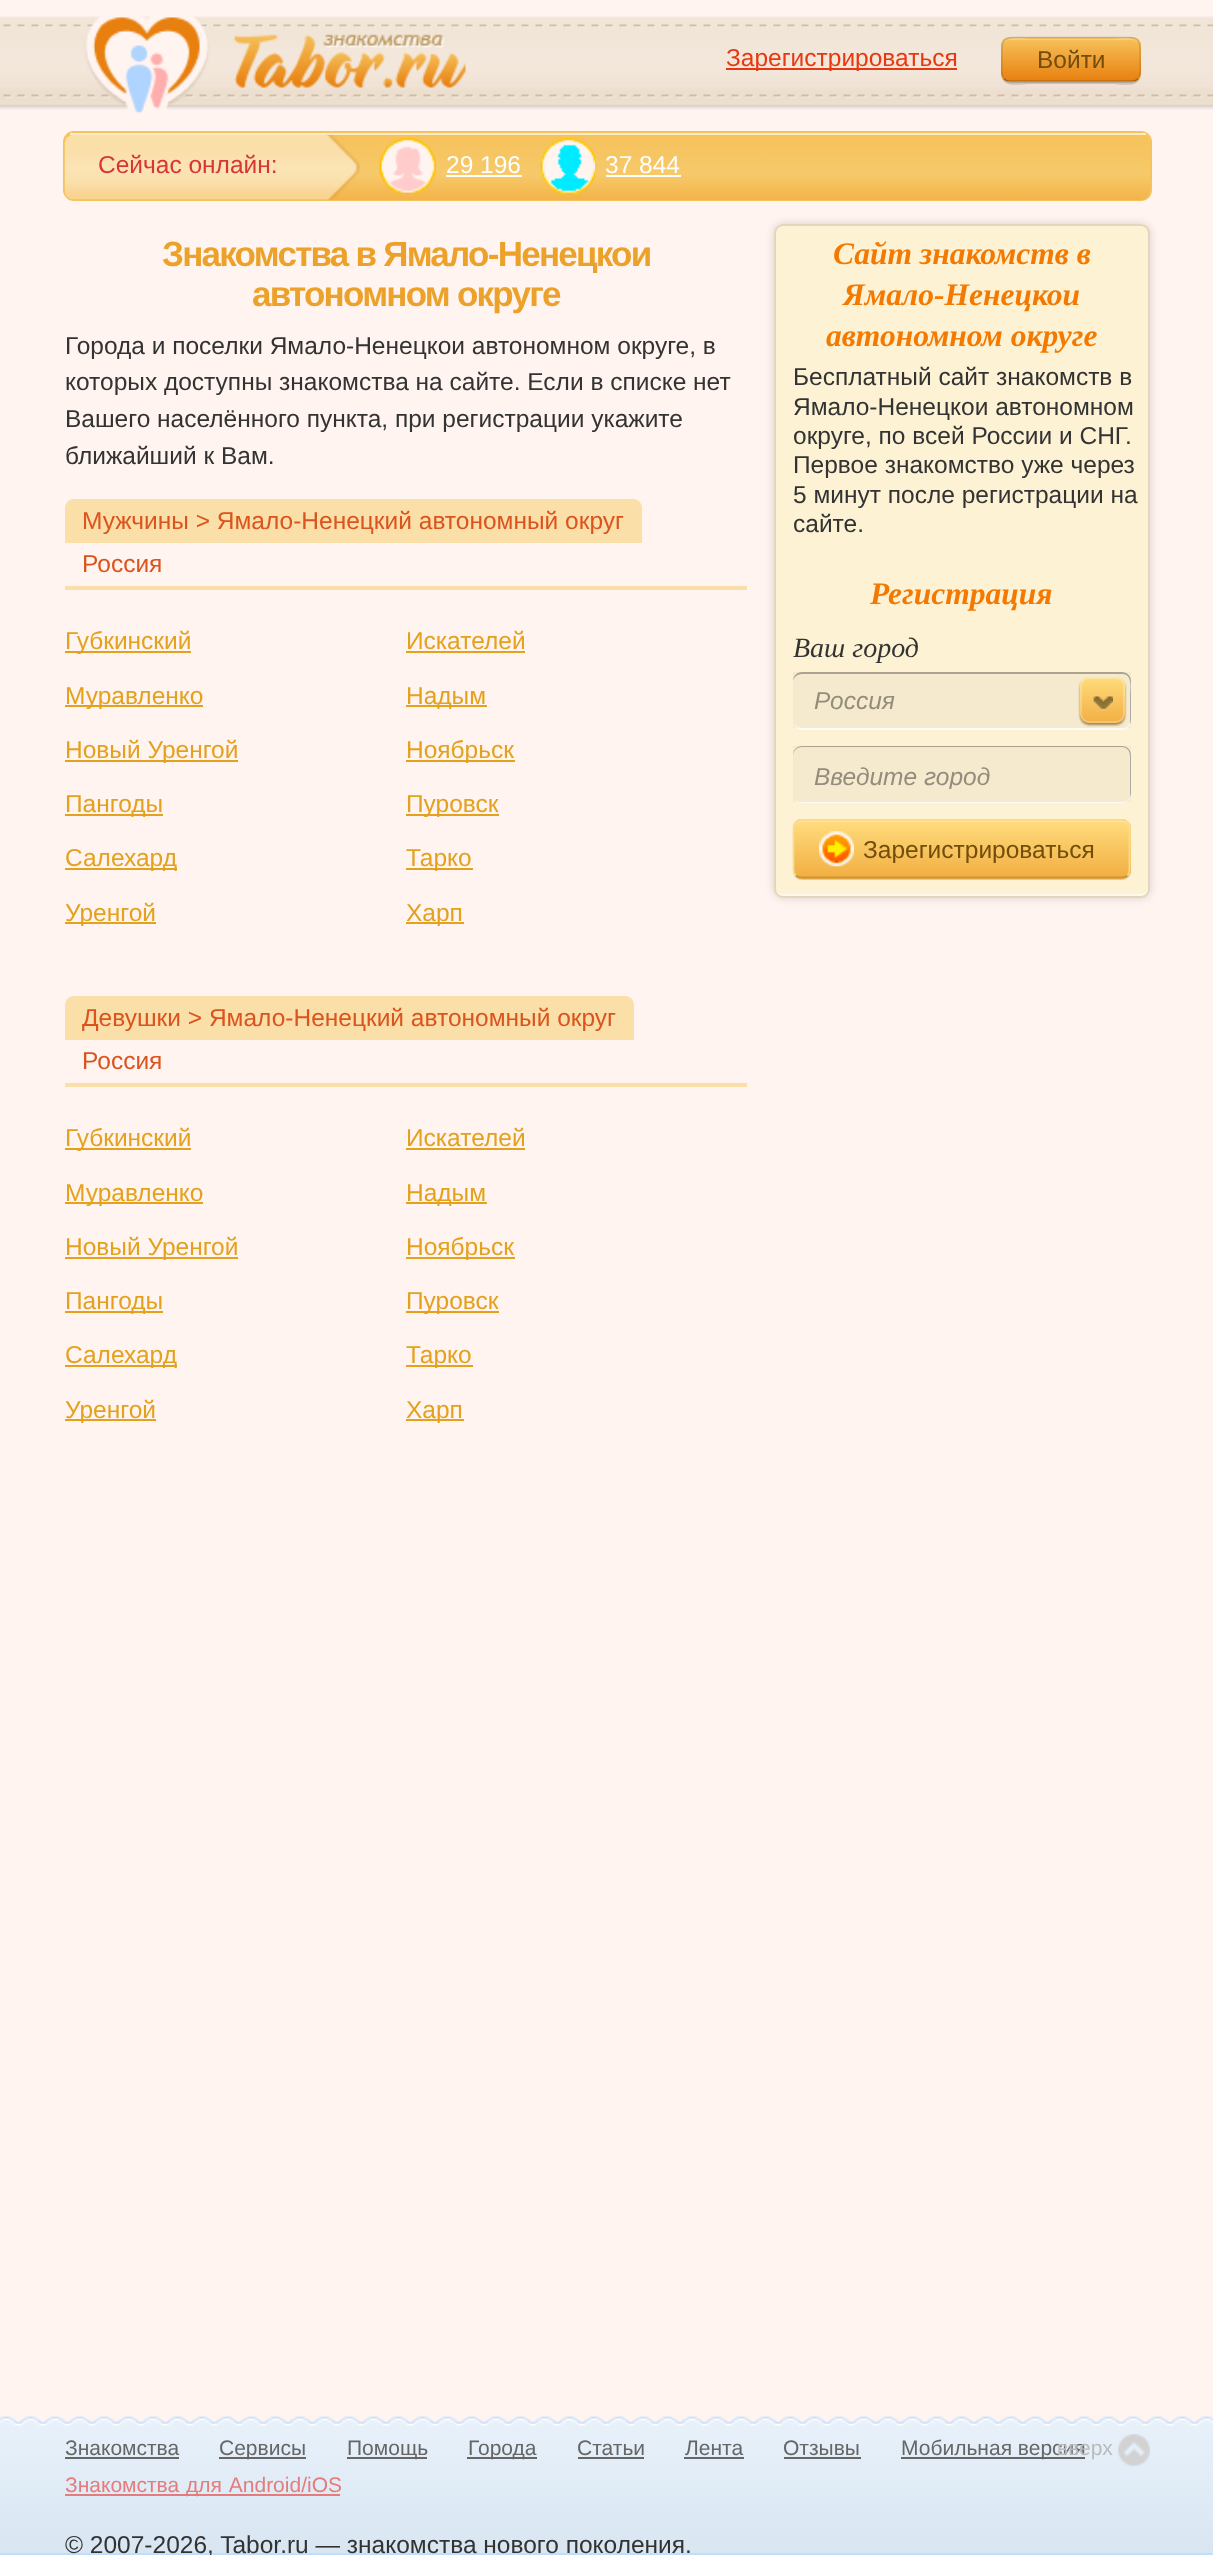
<svg xmlns="http://www.w3.org/2000/svg" width="1213" height="2555" viewBox="0 0 1213 2555">
  <defs>
    <clipPath id="clip1"><rect x="1001" y="37" width="140" height="45" rx="9"/></clipPath>
    <linearGradient id="g1" gradientUnits="userSpaceOnUse" x1="1071" y1="38" x2="1071" y2="81"><stop offset="0" stop-color="rgb(246,194,91)"/><stop offset="1" stop-color="rgb(232,128,15)"/></linearGradient>
    <clipPath id="clip2"><rect x="65" y="133" width="1085" height="67" rx="9"/></clipPath>
    <linearGradient id="g2" gradientUnits="userSpaceOnUse" x1="607" y1="70" x2="607" y2="135"><stop offset="0" stop-color="rgb(246,194,91)"/><stop offset="0.6" stop-color="rgb(247,201,106)"/><stop offset="1" stop-color="rgb(243,180,73)"/></linearGradient>
    <linearGradient id="g3" gradientUnits="userSpaceOnUse" x1="607" y1="135" x2="607" y2="200"><stop offset="0" stop-color="rgb(246,194,91)"/><stop offset="0.6" stop-color="rgb(247,201,106)"/><stop offset="1" stop-color="rgb(243,180,73)"/></linearGradient>
    <linearGradient id="g4" gradientUnits="userSpaceOnUse" x1="1103" y1="677" x2="1103" y2="723"><stop offset="0" stop-color="rgb(255,220,126)"/><stop offset="1" stop-color="rgb(242,175,66)"/></linearGradient>
    <clipPath id="clip3"><rect x="814" y="761" width="308" height="28"/></clipPath>
    <clipPath id="clip4"><rect x="793" y="819" width="338" height="60" rx="9"/></clipPath>
    <linearGradient id="g5" gradientUnits="userSpaceOnUse" x1="962" y1="821" x2="962" y2="877"><stop offset="0" stop-color="rgb(255,220,126)"/><stop offset="1" stop-color="rgb(242,175,66)"/></linearGradient>
    <linearGradient id="g6" gradientUnits="userSpaceOnUse" x1="607" y1="2422" x2="607" y2="2553"><stop offset="0" stop-color="rgb(232,241,250)"/><stop offset="1" stop-color="rgb(216,230,242)"/></linearGradient>
  </defs>
  <rect width="100%" height="100%" fill="rgb(255,244,240)"/>
  <image x="0" y="16" width="1213" height="94" href="pic1.png"/>
  <image x="84" y="16" width="382" height="98" href="pic2.png"/>
  <rect x="726" y="68" width="231" height="2" fill="rgb(232,56,15)"/>
  <text x="726" y="66" font-family="Liberation Sans" font-size="24.5" fill="rgb(232,56,15)">Зарегистрироваться</text>
  <path d="M1001 74C1001 89 1020 84 1030 84H1112C1122 84 1141 89 1141 74C1141 78 1137 82 1132 82H1010C1005 82 1001 78 1001 74Z" fill="rgba(0,0,0,0.15)"/>
  <rect x="1001" y="37" width="140" height="45" rx="9" fill="rgb(246,194,91)"/>
  <g clip-path="url(#clip1)">
    <rect x="1001" y="39" width="140" height="42" fill="url(#g1)"/>
  </g>
  <path d="M1010 40H1132C1136 40 1139 43 1139 47C1139 34 1118 39 1112 39H1030C1024 39 1003 34 1003 47C1003 43 1006 40 1010 40Z" fill="rgba(255,255,255,0.25)"/>
  <path d="M1138 79C1136.5 80.5 1134.5 81.5 1132 81.5H1010C1007.5 81.5 1005.5 80.5 1004 79" fill="none" stroke="rgba(0,0,0,0.25)" stroke-width="1.8"/>
  <path d="M1004 79C1000.5 75.5 1002 69 1002 64C1002 34.5 998.5 37.5 1030 37.5H1112C1143.5 37.5 1140 34.5 1140 64C1140 69 1141.5 75.5 1138 79" fill="none" stroke="rgba(0,0,0,0.1)" stroke-width="1.8"/>
  <text x="1037" y="68" font-family="Liberation Sans" font-size="24.5" fill="rgb(115,77,12)">Войти</text>
  <rect x="64" y="132" width="1087" height="68" rx="10" fill="none" stroke="rgb(246,194,91)" stroke-width="2"/>
  <rect x="65" y="133" width="1085" height="67" rx="9" fill="rgb(246,194,91)"/>
  <g clip-path="url(#clip2)">
    <rect x="65" y="134" width="1085" height="1" fill="url(#g2)"/>
    <path d="M65 135H1150V191C1150 196 1146 200 1141 200H74C69 200 65 196 65 191Z" fill="url(#g3)"/>
  </g>
  <rect x="70" y="133" width="1076" height="2" fill="rgb(253,236,203)"/>
  <image x="64" y="134" width="296" height="66" href="pic3.png"/>
  <text x="98" y="173" font-family="Liberation Sans" font-size="24.5" fill="rgb(215,54,54)">Сейчас онлайн:</text>
  <image x="379" y="138" width="57" height="55" href="pic4.png"/>
  <text x="446" y="173" font-family="Liberation Sans" font-size="24.5" fill="rgb(254,254,254)">29 196</text>
  <rect x="446" y="175" width="76" height="2" fill="rgb(254,254,254)"/>
  <image x="540" y="138" width="55" height="57" href="pic5.png"/>
  <text x="605" y="173" font-family="Liberation Sans" font-size="24.5" fill="rgb(254,254,254)">37 844</text>
  <rect x="606" y="175" width="75" height="2" fill="rgb(254,254,254)"/>
  <g font-family="Liberation Sans" font-size="35" font-weight="bold" letter-spacing="-1.75" fill="rgb(236,162,42)">
    <text x="162" y="266">Знакомства в Ямало-Ненецкои</text>
    <text x="252" y="306">автономном округе</text>
  </g>
  <g font-family="Liberation Sans" font-size="24.5" fill="rgb(51,51,51)">
    <text>
      <tspan x="65" y="354">Города и поселки Ямало-Ненецкои автономном округе, в</tspan>
      <tspan x="65" y="390">которых доступны знакомства на сайте. Если в списке нет</tspan>
      <tspan x="65" y="427">Вашего населённого пункта, при регистрации укажите</tspan>
      <tspan x="65" y="464">ближайший к Вам.</tspan>
    </text>
  </g>
  <rect x="65" y="586" width="682" height="4" fill="rgb(251,223,169)"/>
  <path d="M74 499H633C638 499 642 503 642 508V543H65V508C65 503 69 499 74 499Z" fill="rgb(251,223,169)"/>
  <g font-family="Liberation Sans" font-size="24.5" fill="rgb(219,83,29)">
    <text>
      <tspan x="82" y="529">Мужчины &gt; Ямало-Ненецкий автономный округ</tspan>
      <tspan x="82" y="572">Россия</tspan>
    </text>
  </g>
  <rect x="65" y="651" width="126" height="2" fill="rgb(228,161,30)"/>
  <g font-family="Liberation Sans" font-size="24.5" fill="rgb(228,161,30)">
    <text x="65" y="649">Губкинский</text>
    <text x="406" y="649">Искателей</text>
  </g>
  <rect x="406" y="651" width="119" height="2" fill="rgb(228,161,30)"/>
  <rect x="65" y="705" width="138" height="2" fill="rgb(228,161,30)"/>
  <text x="65" y="704" font-family="Liberation Sans" font-size="24.5" fill="rgb(228,161,30)">Муравленко</text>
  <rect x="406" y="705" width="81" height="2" fill="rgb(228,161,30)"/>
  <text x="406" y="704" font-family="Liberation Sans" font-size="24.5" fill="rgb(228,161,30)">Надым</text>
  <rect x="65" y="760" width="173" height="2" fill="rgb(228,161,30)"/>
  <text x="65" y="758" font-family="Liberation Sans" font-size="24.5" fill="rgb(228,161,30)">Новый Уренгой</text>
  <rect x="406" y="760" width="109" height="2" fill="rgb(228,161,30)"/>
  <text x="406" y="758" font-family="Liberation Sans" font-size="24.5" fill="rgb(228,161,30)">Ноябрьск</text>
  <rect x="65" y="814" width="98" height="2" fill="rgb(228,161,30)"/>
  <text x="65" y="812" font-family="Liberation Sans" font-size="24.5" fill="rgb(228,161,30)">Пангоды</text>
  <rect x="406" y="814" width="93" height="2" fill="rgb(228,161,30)"/>
  <text x="406" y="812" font-family="Liberation Sans" font-size="24.5" fill="rgb(228,161,30)">Пуровск</text>
  <rect x="65" y="868" width="112" height="2" fill="rgb(228,161,30)"/>
  <text x="65" y="866" font-family="Liberation Sans" font-size="24.5" fill="rgb(228,161,30)">Салехард</text>
  <rect x="406" y="868" width="67" height="2" fill="rgb(228,161,30)"/>
  <text x="406" y="866" font-family="Liberation Sans" font-size="24.5" fill="rgb(228,161,30)">Тарко</text>
  <rect x="65" y="922" width="91" height="2" fill="rgb(228,161,30)"/>
  <text x="65" y="921" font-family="Liberation Sans" font-size="24.5" fill="rgb(228,161,30)">Уренгой</text>
  <rect x="406" y="922" width="58" height="2" fill="rgb(228,161,30)"/>
  <text x="406" y="921" font-family="Liberation Sans" font-size="24.5" fill="rgb(228,161,30)">Харп</text>
  <rect x="65" y="1083" width="682" height="4" fill="rgb(251,223,169)"/>
  <path d="M74 996H625C630 996 634 1000 634 1005V1040H65V1005C65 1000 69 996 74 996Z" fill="rgb(251,223,169)"/>
  <g font-family="Liberation Sans" font-size="24.5" fill="rgb(219,83,29)">
    <text>
      <tspan x="82" y="1026">Девушки &gt; Ямало-Ненецкий автономный округ</tspan>
      <tspan x="82" y="1069">Россия</tspan>
    </text>
  </g>
  <rect x="65" y="1148" width="126" height="2" fill="rgb(228,161,30)"/>
  <g font-family="Liberation Sans" font-size="24.5" fill="rgb(228,161,30)">
    <text x="65" y="1146">Губкинский</text>
    <text x="406" y="1146">Искателей</text>
  </g>
  <rect x="406" y="1148" width="119" height="2" fill="rgb(228,161,30)"/>
  <rect x="65" y="1202" width="138" height="2" fill="rgb(228,161,30)"/>
  <text x="65" y="1201" font-family="Liberation Sans" font-size="24.5" fill="rgb(228,161,30)">Муравленко</text>
  <rect x="406" y="1202" width="81" height="2" fill="rgb(228,161,30)"/>
  <text x="406" y="1201" font-family="Liberation Sans" font-size="24.5" fill="rgb(228,161,30)">Надым</text>
  <rect x="65" y="1257" width="173" height="2" fill="rgb(228,161,30)"/>
  <text x="65" y="1255" font-family="Liberation Sans" font-size="24.5" fill="rgb(228,161,30)">Новый Уренгой</text>
  <rect x="406" y="1257" width="109" height="2" fill="rgb(228,161,30)"/>
  <text x="406" y="1255" font-family="Liberation Sans" font-size="24.5" fill="rgb(228,161,30)">Ноябрьск</text>
  <rect x="65" y="1311" width="98" height="2" fill="rgb(228,161,30)"/>
  <text x="65" y="1309" font-family="Liberation Sans" font-size="24.5" fill="rgb(228,161,30)">Пангоды</text>
  <rect x="406" y="1311" width="93" height="2" fill="rgb(228,161,30)"/>
  <text x="406" y="1309" font-family="Liberation Sans" font-size="24.5" fill="rgb(228,161,30)">Пуровск</text>
  <rect x="65" y="1365" width="112" height="2" fill="rgb(228,161,30)"/>
  <text x="65" y="1363" font-family="Liberation Sans" font-size="24.5" fill="rgb(228,161,30)">Салехард</text>
  <rect x="406" y="1365" width="67" height="2" fill="rgb(228,161,30)"/>
  <text x="406" y="1363" font-family="Liberation Sans" font-size="24.5" fill="rgb(228,161,30)">Тарко</text>
  <rect x="65" y="1419" width="91" height="2" fill="rgb(228,161,30)"/>
  <text x="65" y="1418" font-family="Liberation Sans" font-size="24.5" fill="rgb(228,161,30)">Уренгой</text>
  <rect x="406" y="1419" width="58" height="2" fill="rgb(228,161,30)"/>
  <text x="406" y="1418" font-family="Liberation Sans" font-size="24.5" fill="rgb(228,161,30)">Харп</text>
  <rect x="774" y="224" width="376" height="674" rx="9" fill="rgba(0,0,0,0.15)" filter="blur(4.5px)"/>
  <rect x="774" y="224" width="376" height="674" rx="9" fill="rgb(253,242,212)"/>
  <path d="M775 887V889C775 893 778 896 782 896H1141C1145 896 1148 893 1148 889V887C1148 891 1145 894 1141 894H782C778 894 775 891 775 887Z" fill="rgb(254,249,234)"/>
  <rect x="775" y="225" width="374" height="672" rx="8" fill="none" stroke="rgb(228,213,190)" stroke-width="2"/>
  <g font-family="Liberation Serif" font-size="31.5" font-weight="bold" font-style="italic" fill="rgb(244,121,0)">
    <text x="833" y="264">Сайт знакомств в</text>
    <text x="843" y="305">Ямало-Ненецкои</text>
    <text x="826" y="346">автономном округе</text>
  </g>
  <g font-family="Liberation Sans" font-size="24.5" fill="rgb(51,51,51)">
    <text>
      <tspan x="793" y="385">Бесплатный сайт знакомств в</tspan>
      <tspan x="793" y="415">Ямало-Ненецкои автономном</tspan>
      <tspan x="793" y="444">округе, по всей России и СНГ.</tspan>
      <tspan x="793" y="473">Первое знакомство уже через</tspan>
      <tspan x="793" y="503">5 минут после регистрации на</tspan>
      <tspan x="793" y="532">сайте.</tspan>
    </text>
  </g>
  <text x="870" y="604" font-family="Liberation Serif" font-size="31.5" font-weight="bold" font-style="italic" fill="rgb(244,121,0)">Регистрация</text>
  <text x="793" y="657" font-family="Liberation Serif" font-size="28" font-style="italic" fill="rgb(51,51,51)">Ваш город</text>
  <path d="M793 721C793 726 797 730 802 730H1122C1127 730 1131 726 1131 721V683L1130 680V719C1130 724 1127 728 1122 728H802C797 728 794 725 793 721Z" fill="rgb(255,252,246)"/>
  <rect x="793" y="672" width="338" height="56" fill="rgba(0,0,0,0.03)"/>
  <path d="M802 674H1122C1133 674 1130 688 1130 695V724C1131 722 1131 721 1131 719V681C1131 676 1127 672 1122 672H802C797 672 793 676 793 681V682C793 678 797 674 802 674Z" fill="rgba(0,0,0,0.3)"/>
  <text x="814" y="709" font-family="Liberation Sans" font-size="24.5" font-style="italic" fill="rgb(148,141,126)">Россия</text>
  <rect x="1080" y="679" width="45" height="46" rx="9" fill="rgba(125,97,51,0.75)" filter="blur(1px)"/>
  <rect x="1080" y="677" width="45" height="46" rx="9" fill="url(#g4)"/>
  <rect x="1081" y="678" width="43" height="44" rx="8" fill="none" stroke="rgba(255,255,255,0.25)" stroke-width="2"/>
  <image x="1093" y="696" width="20" height="15" href="pic6.png"/>
  <path d="M793 795C794 800 797 803 802 803H1122C1127 803 1131 799 1131 794V756L1130 753V793C1130 798 1127 802 1122 802H802C797 802 794 799 793 795Z" fill="rgb(255,252,246)"/>
  <rect x="793" y="746" width="338" height="56" fill="rgba(0,0,0,0.03)"/>
  <path d="M802 747H1122C1127 747 1130 751 1130 756V794C1130 796 1130 797 1129 799C1130 797 1131 795 1131 793V755C1131 750 1127 746 1122 746H802C797 746 793 750 793 755V756C793 751 797 747 802 747Z" fill="rgba(0,0,0,0.3)"/>
  <g clip-path="url(#clip3)">
    <text x="814" y="785" font-family="Liberation Sans" font-size="24.5" font-style="italic" fill="rgb(148,141,126)">Введите город</text>
  </g>
  <path d="M793 872C794 877 797 880 802 880H1122C1127 880 1131 876 1131 871V830L1130 827V870C1130 875 1127 878 1122 878H802C797 878 794 876 793 872Z" fill="rgb(215,206,180)"/>
  <rect x="793" y="819" width="338" height="60" rx="9" fill="rgb(242,175,66)"/>
  <g clip-path="url(#clip4)">
    <rect x="793" y="821" width="338" height="56" fill="url(#g5)"/>
  </g>
  <path d="M802 822H1122C1126 822 1129 826 1129 830V828C1129 824 1126 821 1122 821H802C799 821 796 823 795 826C797 824 799 822 802 822Z" fill="rgba(255,255,255,0.25)"/>
  <path d="M1127.5 875.5C1126 877 1124 877.5 1122 877.5H801.5C799.5 877.5 797.5 877 796 875.5" fill="none" stroke="rgba(0,0,0,0.15)" stroke-width="1.8"/>
  <path d="M796 875.5C794.5 874 793.5 872 793.5 870V828C793.5 825.5 794.5 823.5 796 822C797.5 820.5 799.5 820 801.5 820H1122C1124 820 1126 820.5 1127.5 822C1129 823.5 1129.5 825.5 1129.5 828V870C1129.5 872 1129 874 1127.5 875.5" fill="none" stroke="rgb(251,217,143)" stroke-width="1.8"/>
  <image x="819" y="831" width="35" height="36" href="pic7.png"/>
  <text x="863" y="858" font-family="Liberation Sans" font-size="24.5" fill="rgb(115,77,12)">Зарегистрироваться</text>
  <rect x="0" y="2425" width="1213" height="128" fill="url(#g6)"/>
  <rect x="0" y="2553" width="1213" height="2" fill="rgb(194,220,251)"/>
  <image x="0" y="2416" width="1213" height="10" href="pic8.png"/>
  <text x="65" y="2455" font-family="Liberation Sans" font-size="21" fill="rgb(102,102,102)">Знакомства</text>
  <rect x="65" y="2457" width="114" height="2" fill="rgb(102,102,102)"/>
  <rect x="219" y="2457" width="87" height="2" fill="rgb(102,102,102)"/>
  <text x="219" y="2455" font-family="Liberation Sans" font-size="21" fill="rgb(102,102,102)">Сервисы</text>
  <rect x="347" y="2457" width="80" height="2" fill="rgb(102,102,102)"/>
  <text x="347" y="2455" font-family="Liberation Sans" font-size="21" fill="rgb(102,102,102)">Помощь</text>
  <rect x="467" y="2457" width="70" height="2" fill="rgb(102,102,102)"/>
  <g font-family="Liberation Sans" font-size="21" fill="rgb(102,102,102)">
    <text x="468" y="2455">Города</text>
    <text x="577" y="2455">Статьи</text>
  </g>
  <rect x="578" y="2457" width="66" height="2" fill="rgb(102,102,102)"/>
  <text x="685" y="2455" font-family="Liberation Sans" font-size="21" fill="rgb(102,102,102)">Лента</text>
  <rect x="684" y="2457" width="60" height="2" fill="rgb(102,102,102)"/>
  <text x="783" y="2455" font-family="Liberation Sans" font-size="21" fill="rgb(102,102,102)">Отзывы</text>
  <rect x="784" y="2457" width="77" height="2" fill="rgb(102,102,102)"/>
  <rect x="901" y="2457" width="184" height="2" fill="rgb(102,102,102)"/>
  <text x="901" y="2455" font-family="Liberation Sans" font-size="21" fill="rgb(102,102,102)">Мобильная версия</text>
  <rect x="65" y="2494" width="275" height="2" fill="rgb(229,124,123)"/>
  <text x="65" y="2492" word-spacing="1" font-family="Liberation Sans" font-size="21" fill="rgb(229,124,123)">Знакомства для Android/iOS</text>
  <text x="1057" y="2455" font-family="Liberation Sans" font-size="21" fill="rgb(187,187,187)">вверх</text>
  <image x="1118" y="2434" width="32" height="32" href="pic9.png"/>
  <text x="65" y="2553" font-family="Liberation Sans" font-size="24.5" fill="rgb(51,51,51)">© 2007-2026, Tabor.ru — знакомства нового поколения.</text>
</svg>
